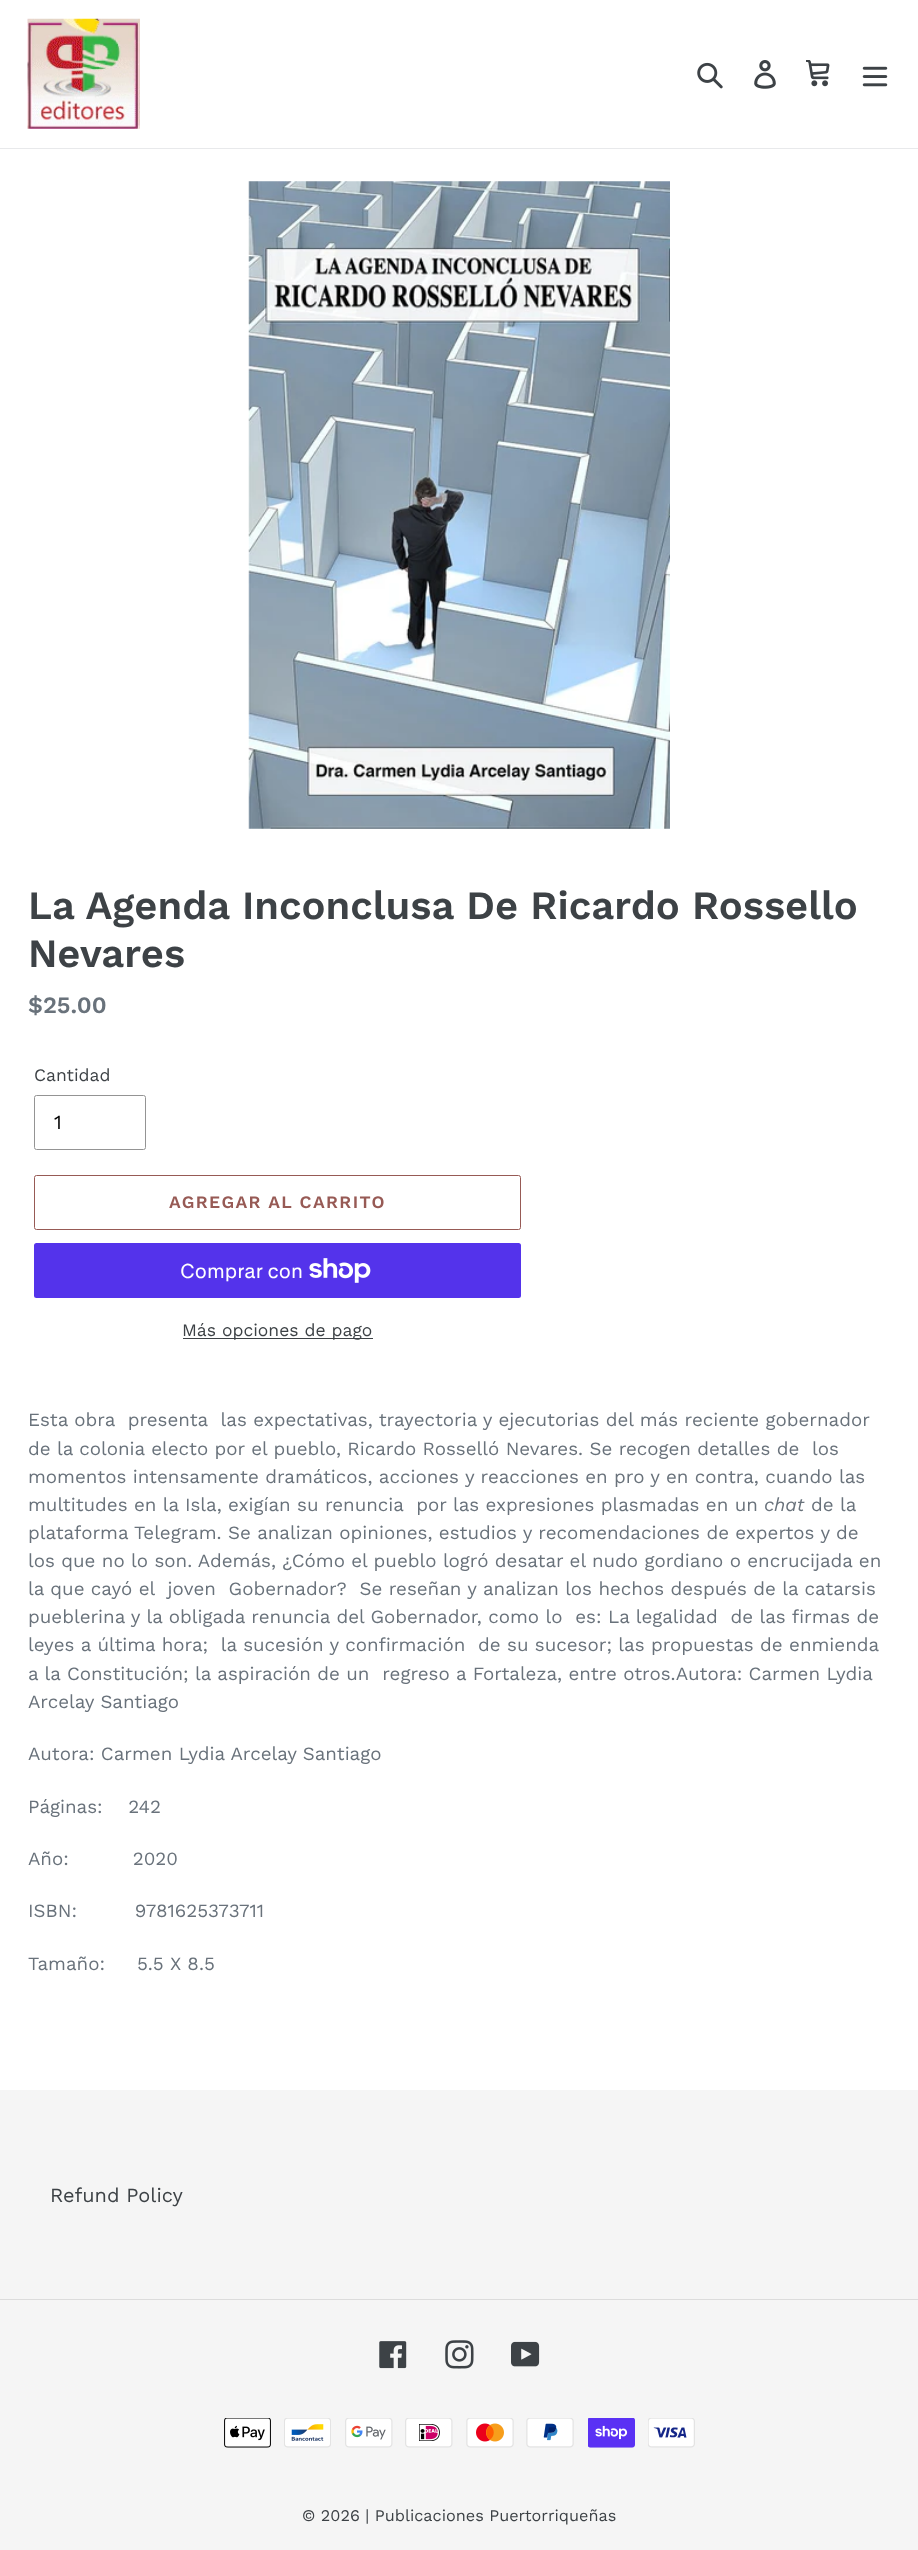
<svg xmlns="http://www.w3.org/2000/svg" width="918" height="2550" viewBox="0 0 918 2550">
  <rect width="100%" height="100%" fill="rgb(255,255,255)"/>
  <rect x="0" y="148" width="918" height="1" fill="rgb(232,233,235)"/>
  <image x="27" y="18" width="113" height="111" href="pic1.png"/>
  <image x="697" y="62" width="26" height="27" href="pic2.png"/>
  <image x="754" y="60" width="22" height="29" href="pic3.png"/>
  <image x="806" y="60" width="24" height="27" href="pic4.png"/>
  <image x="862" y="66" width="26" height="21" href="pic5.png"/>
  <image x="248" y="181" width="422" height="648" href="pic6.png"/>
  <g font-family="Work Sans" font-size="40" font-weight="600" fill="rgb(61,66,70)">
    <text>
      <tspan x="28" y="919">La Agenda Inconclusa De Ricardo Rossello</tspan>
      <tspan x="28" y="967">Nevares</tspan>
    </text>
  </g>
  <text x="28" y="1013" font-family="Work Sans" font-size="23.5" font-weight="600" fill="rgb(105,114,123)">$25.00</text>
  <text x="34" y="1081" font-family="Work Sans" font-size="17.5" fill="rgb(61,66,70)">Cantidad</text>
  <rect x="34.5" y="1095.5" width="111" height="54" rx="2" fill="none" stroke="rgb(148,148,148)"/>
  <text x="54" y="1129" font-family="Work Sans" font-size="20" fill="rgb(0,0,0)">1</text>
  <rect x="34.5" y="1175.5" width="486" height="54" rx="2" fill="none" stroke="rgb(151,90,85)"/>
  <text x="169" y="1208" font-family="Work Sans" font-size="17.5" font-weight="600" letter-spacing="1.4" fill="rgb(151,90,85)">AGREGAR AL CARRITO</text>
  <rect x="34" y="1243" width="487" height="55" rx="2.5" fill="rgb(84,51,235)"/>
  <text x="180" y="1278" font-family="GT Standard" font-size="20" fill="rgb(255,255,255)">Comprar con</text>
  <image x="309" y="1258" width="62" height="25" href="pic7.png"/>
  <rect x="183" y="1338" width="190" height="1" fill="rgb(61,66,70)"/>
  <text x="182" y="1336" font-family="Work Sans" font-size="17.5" fill="rgb(61,66,70)">Más opciones de pago</text>
  <g font-family="Work Sans" font-size="18.75" fill="rgb(105,114,123)">
    <text xml:space="preserve"><tspan x="28" y="1426">Esta obra  presenta  las expectativas, trayectoria y ejecutorias del más reciente gobernador</tspan><tspan x="28" y="1455">de la colonia electo por el pueblo, Ricardo Rosselló Nevares. Se recogen detalles de  los</tspan><tspan x="28" y="1483">momentos intensamente dramáticos, acciones y reacciones en pro y en contra, cuando las</tspan><tspan x="28" y="1511">multitudes en la Isla, exigían su renuncia  por las expresiones plasmadas en un</tspan></text>
  </g>
  <text x="764" y="1511" font-family="Work Sans" font-size="18.75" font-style="italic" fill="rgb(105,114,123)">chat</text>
  <g font-family="Work Sans" font-size="18.75" fill="rgb(105,114,123)">
    <text x="811" y="1511">de la</text>
    <text xml:space="preserve"><tspan x="28" y="1539">plataforma Telegram. Se analizan opiniones, estudios y recomendaciones de expertos y de</tspan><tspan x="28" y="1567">los que no lo son. Además, ¿Cómo el pueblo logró desatar el nudo gordiano o encrucijada en</tspan><tspan x="28" y="1595">la que cayó el  joven  Gobernador?  Se reseñan y analizan los hechos después de la catarsis</tspan><tspan x="28" y="1623">pueblerina y la obligada renuncia del Gobernador, como lo  es: La legalidad  de las firmas de</tspan><tspan x="28" y="1651">leyes a última hora;  la sucesión y confirmación  de su sucesor; las propuestas de enmienda</tspan><tspan x="28" y="1680">a la Constitución; la aspiración de un  regreso a Fortaleza, entre otros.Autora: Carmen Lydia</tspan><tspan x="28" y="1708">Arcelay Santiago</tspan></text>
    <text x="28" y="1760">Autora: Carmen Lydia Arcelay Santiago</text>
    <text x="28" y="1813" xml:space="preserve">Páginas:    242</text>
    <text x="28" y="1865" xml:space="preserve">Año:          2020</text>
    <text x="28" y="1917" xml:space="preserve">ISBN:         9781625373711</text>
    <text x="28" y="1970" xml:space="preserve">Tamaño:     5.5 X 8.5</text>
  </g>
  <rect x="0" y="2090" width="918" height="460" fill="rgb(245,245,245)"/>
  <text x="50" y="2202" font-family="Work Sans" font-size="20" fill="rgb(61,66,70)">Refund Policy</text>
  <rect x="0" y="2299" width="918" height="1" fill="rgb(220,220,220)"/>
  <image x="379" y="2341" width="28" height="28" href="pic8.png"/>
  <image x="445" y="2340" width="29" height="29" href="pic9.png"/>
  <image x="511" y="2341" width="29" height="26" href="pic10.png"/>
  <image x="224" y="2418" width="47" height="30" href="pic11.png"/>
  <image x="284" y="2418" width="47" height="30" href="pic12.png"/>
  <image x="345" y="2418" width="48" height="30" href="pic13.png"/>
  <image x="405" y="2418" width="48" height="30" href="pic14.png"/>
  <image x="466" y="2418" width="48" height="30" href="pic15.png"/>
  <image x="526" y="2418" width="48" height="30" href="pic16.png"/>
  <image x="588" y="2418" width="47" height="30" href="pic17.png"/>
  <image x="648" y="2418" width="47" height="30" href="pic18.png"/>
  <text x="302" y="2521" font-family="Work Sans" font-size="16.25" fill="rgb(61,66,70)">© 2026 | Publicaciones Puertorriqueñas</text>
</svg>
